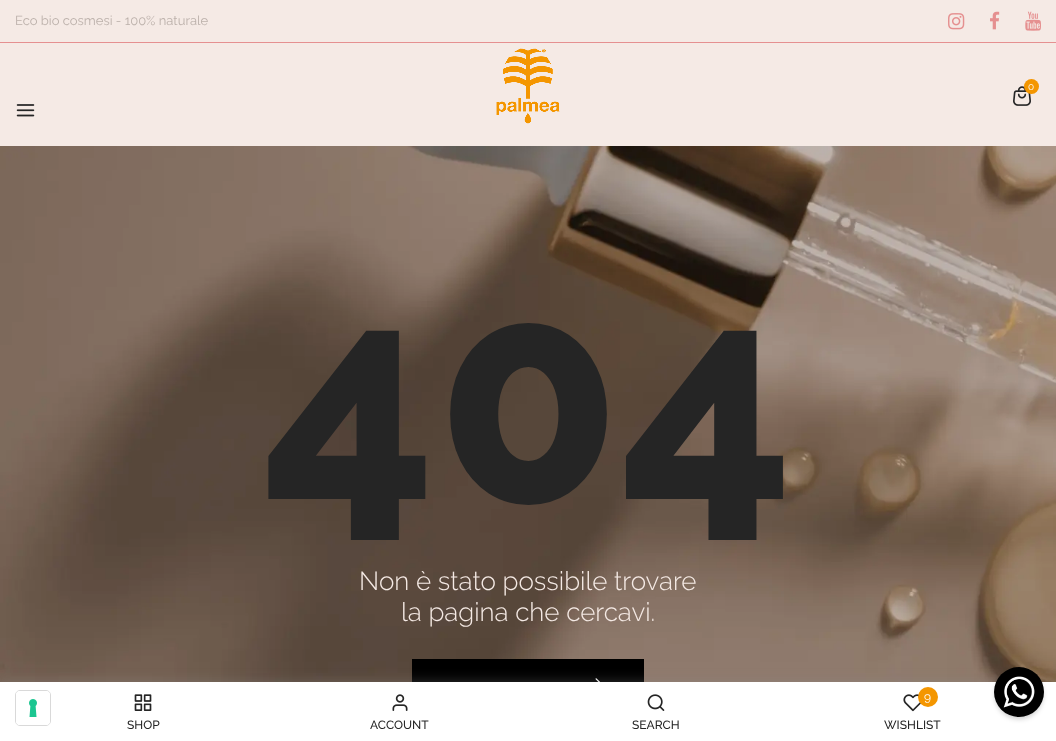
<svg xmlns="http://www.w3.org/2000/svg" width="1056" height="741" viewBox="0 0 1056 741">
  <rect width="100%" height="100%" fill="rgb(245,234,229)"/>
  <rect x="0" y="42" width="1056" height="1" fill="rgb(229,144,144)"/>
  <text x="15" y="25" font-family="Raleway" font-size="13" fill="rgb(188,177,171)">Eco bio cosmesi - 100% naturale</text>
  <image x="948" y="13" width="17" height="17" href="pic1.png"/>
  <image x="990" y="11" width="10" height="19" href="pic2.png"/>
  <image x="1025" y="11" width="16" height="20" href="pic3.png"/>
  <image x="496" y="48" width="64" height="76" href="pic4.png"/>
  <image x="1013" y="86" width="18" height="20" href="pic5.png"/>
  <circle cx="1031.5" cy="86.5" r="7.5" fill="rgb(244,150,0)"/>
  <text x="1028" y="90" font-family="Raleway" font-size="10" fill="rgb(255,255,255)">0</text>
  <image x="16" y="104" width="19" height="13" href="pic6.png"/>
  <image x="0" y="146" width="1056" height="536" href="pic11.png"/>
  <rect x="412" y="659" width="232" height="23" fill="rgb(0,0,0)"/>
  <image x="595" y="678" width="5" height="4" href="pic12.png"/>
  <rect x="-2" y="681" width="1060" height="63" fill="rgba(143,143,143,0.3)" filter="blur(6px)"/>
  <rect x="0" y="682" width="1056" height="59" fill="rgb(255,255,255)"/>
  <image x="134" y="694" width="18" height="17" href="pic7.png"/>
  <text x="127" y="729" font-family="Raleway" font-size="12" font-weight="500" fill="rgb(37,37,37)">SHOP</text>
  <image x="392" y="694" width="16" height="17" href="pic8.png"/>
  <text x="370" y="729" font-family="Raleway" font-size="12" font-weight="500" fill="rgb(37,37,37)">ACCOUNT</text>
  <image x="647" y="694" width="18" height="17" href="pic9.png"/>
  <text x="632" y="729" font-family="Raleway" font-size="12" font-weight="500" fill="rgb(37,37,37)">SEARCH</text>
  <image x="903" y="694" width="18" height="18" href="pic10.png"/>
  <circle cx="928" cy="697" r="10" fill="rgb(244,150,0)"/>
  <text x="924" y="701" font-family="Raleway" font-size="12" fill="rgb(255,255,255)">9</text>
  <text x="884" y="729" font-family="Raleway" font-size="12" font-weight="500" fill="rgb(37,37,37)">WISHLIST</text>
  <text x="263" y="502" font-family="Raleway" font-size="300" font-weight="800" fill="rgb(37,37,37)">404</text>
  <g font-family="Raleway" font-size="26" font-weight="300" fill="rgb(245,234,229)">
    <text x="359" y="590">Non è stato possibile trovare</text>
    <text x="401" y="621">la pagina che cercavi.</text>
  </g>
  <rect x="15.5" y="690.5" width="35" height="35" rx="4.5" fill="none" stroke="rgb(217,217,217)"/>
  <rect x="16" y="691" width="34" height="34" rx="4" fill="rgb(255,255,255)"/>
  <image x="29" y="699" width="8" height="18" href="pic13.png"/>
  <rect x="995" y="671" width="48" height="48" rx="24" fill="rgba(0,0,0,0.2)" filter="blur(2.5px)"/>
  <circle cx="1019" cy="692" r="25" fill="rgb(0,0,0)"/>
  <image x="1003" y="676" width="32" height="32" href="pic14.png"/>
</svg>
